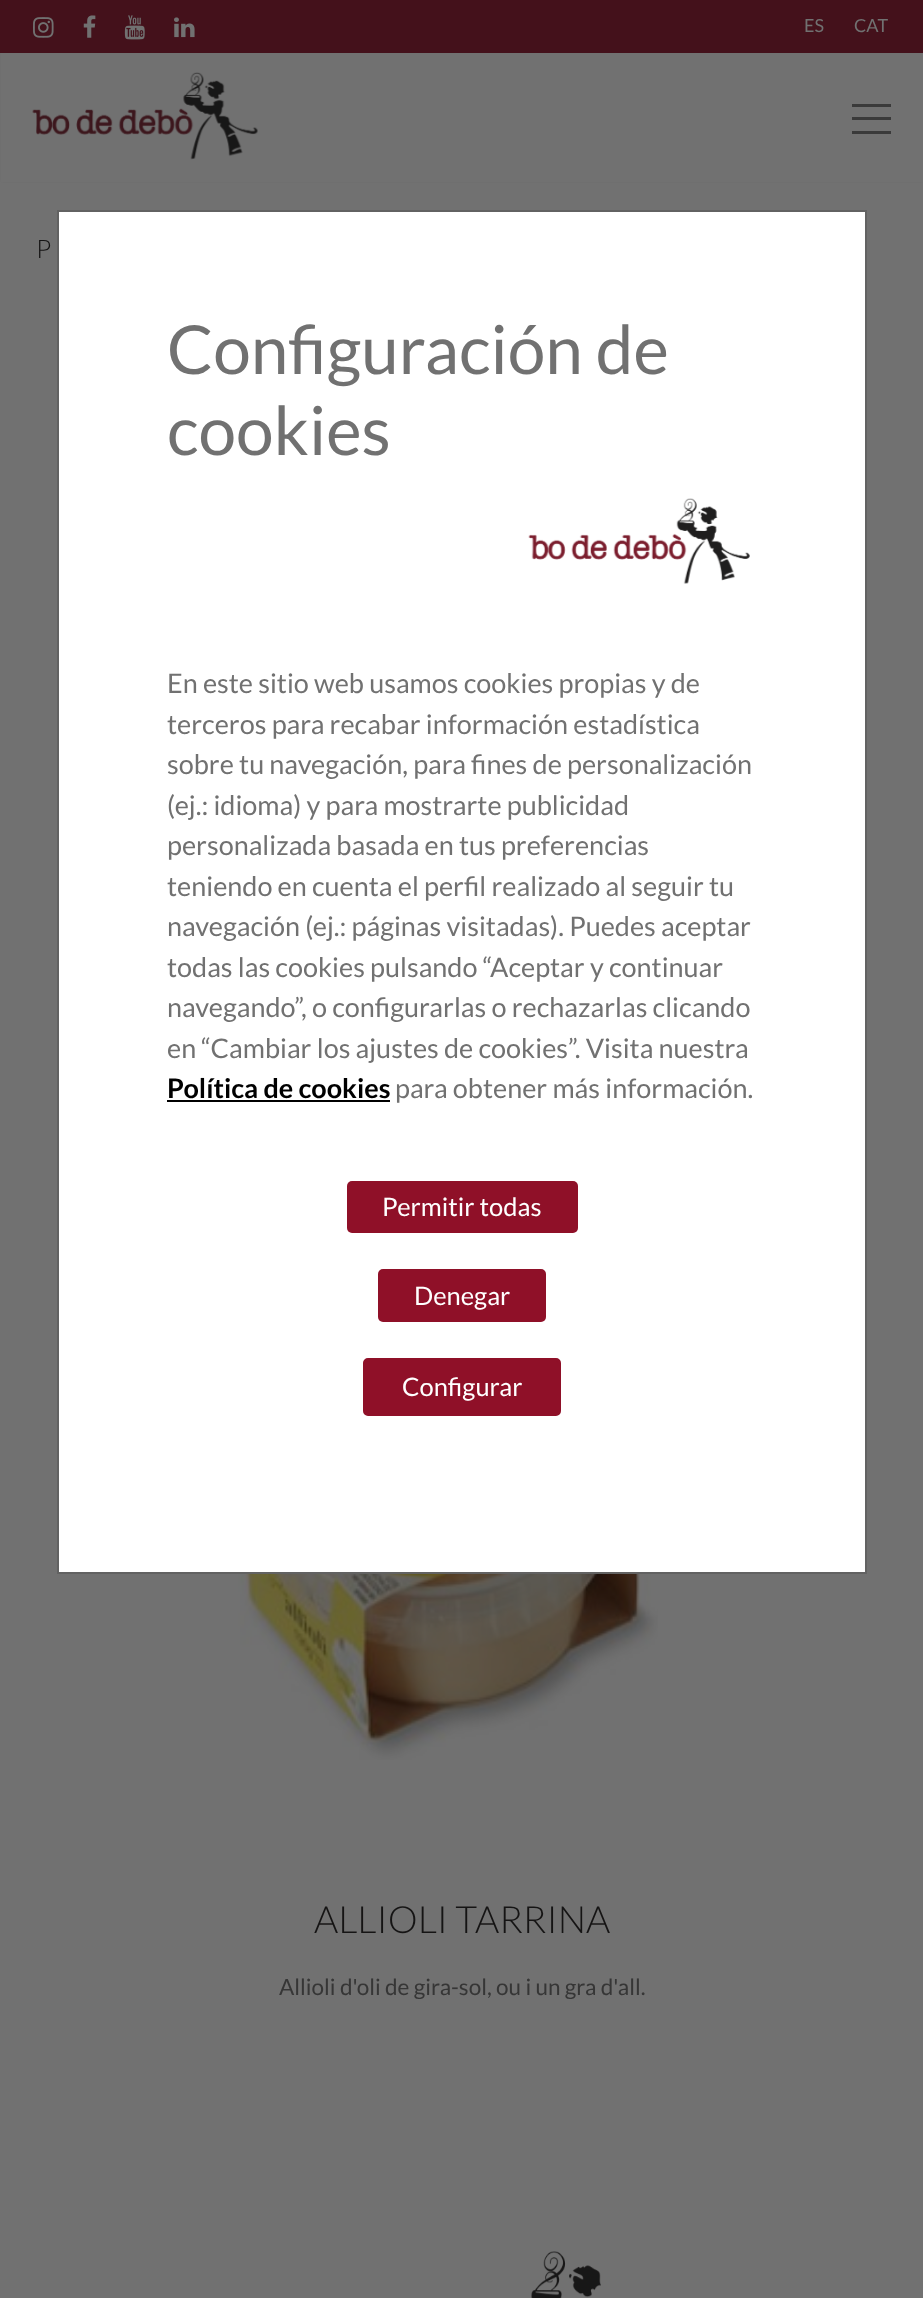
<svg xmlns="http://www.w3.org/2000/svg" width="923" height="2298" viewBox="0 0 923 2298">
  <rect width="100%" height="100%" fill="rgb(113,113,113)"/>
  <rect x="3" y="5" width="918" height="175" fill="rgb(62,62,62)" filter="blur(1.5px)"/>
  <rect x="1" y="53" width="922" height="129" fill="rgb(113,113,113)"/>
  <rect x="0" y="0" width="923" height="53" fill="rgb(68,17,27)"/>
  <image x="33" y="17" width="21" height="21" href="pic1.png"/>
  <image x="83" y="15" width="13" height="23" href="pic2.png"/>
  <image x="124" y="15" width="21" height="25" href="pic3.png"/>
  <image x="174" y="17" width="21" height="21" href="pic4.png"/>
  <g font-family="Lato" font-size="18" fill="rgb(113,113,113)">
    <text x="804" y="32">ES</text>
    <text x="854" y="32">CAT</text>
  </g>
  <image x="32" y="72" width="226" height="88" href="pic5.png"/>
  <rect x="852" y="104" width="39" height="3" fill="rgb(58,58,58)"/>
  <rect x="852" y="117" width="39" height="3" fill="rgb(58,58,58)"/>
  <rect x="852" y="131" width="39" height="3" fill="rgb(58,58,58)"/>
  <text x="36" y="258" font-family="Lato" font-size="25.5" font-weight="300" fill="rgb(21,20,20)">P</text>
  <image x="238" y="1574" width="420" height="186" href="pic6.png"/>
  <text x="314" y="1933" font-family="Lato" font-size="37.5" font-weight="300" fill="rgb(21,20,20)">ALLIOLI TARRINA</text>
  <text x="279" y="1995" font-family="Lato" font-size="22.5" fill="rgb(54,54,54)">Allioli d'oli de gira-sol, ou i un gra d'all.</text>
  <rect x="58" y="211" width="808" height="1362" fill="rgb(255,255,255)" stroke="rgb(98,98,98)" stroke-width="2"/>
  <g font-family="Lato" font-size="67.5" fill="rgb(113,113,113)">
    <text>
      <tspan x="167" y="374">Configuración de</tspan>
      <tspan x="167" y="455">cookies</tspan>
    </text>
  </g>
  <image x="528" y="498" width="222" height="86" href="pic7.png"/>
  <g font-family="Lato" font-size="27" fill="rgb(113,113,113)">
    <text>
      <tspan x="167" y="693">En este sitio web usamos cookies propias y de</tspan>
      <tspan x="167" y="734">terceros para recabar información estadística</tspan>
      <tspan x="167" y="774">sobre tu navegación, para fines de personalización</tspan>
      <tspan x="167" y="815">(ej.: idioma) y para mostrarte publicidad</tspan>
      <tspan x="167" y="855">personalizada basada en tus preferencias</tspan>
      <tspan x="167" y="896">teniendo en cuenta el perfil realizado al seguir tu</tspan>
      <tspan x="167" y="936">navegación (ej.: páginas visitadas). Puedes aceptar</tspan>
      <tspan x="167" y="977">todas las cookies pulsando “Aceptar y continuar</tspan>
      <tspan x="167" y="1017">navegando”, o configurarlas o rechazarlas clicando</tspan>
      <tspan x="167" y="1058">en “Cambiar los ajustes de cookies”. Visita nuestra</tspan>
    </text>
  </g>
  <text x="167" y="1098" font-family="Lato" font-size="27" font-weight="bold" fill="rgb(0,0,0)">Política de cookies</text>
  <rect x="167" y="1100" width="223" height="2" fill="rgb(0,0,0)"/>
  <text x="395" y="1098" font-family="Lato" font-size="27" fill="rgb(113,113,113)">para obtener más información.</text>
  <rect x="347" y="1181" width="231" height="52" rx="5" fill="rgb(143,16,40)"/>
  <text x="382" y="1216" font-family="Lato" font-size="25.5" fill="rgb(255,255,255)">Permitir todas</text>
  <rect x="378" y="1269" width="168" height="53" rx="5" fill="rgb(143,16,40)"/>
  <text x="414" y="1305" font-family="Lato" font-size="25.5" fill="rgb(255,255,255)">Denegar</text>
  <rect x="364.5" y="1359.5" width="195" height="55" rx="3.5" fill="rgb(143,16,40)" stroke="rgb(143,16,40)" stroke-width="3"/>
  <text x="402" y="1396" font-family="Lato" font-size="25.5" fill="rgb(255,255,255)">Configurar</text>
  <image x="531" y="2251" width="70" height="47" href="pic8.png"/>
</svg>
